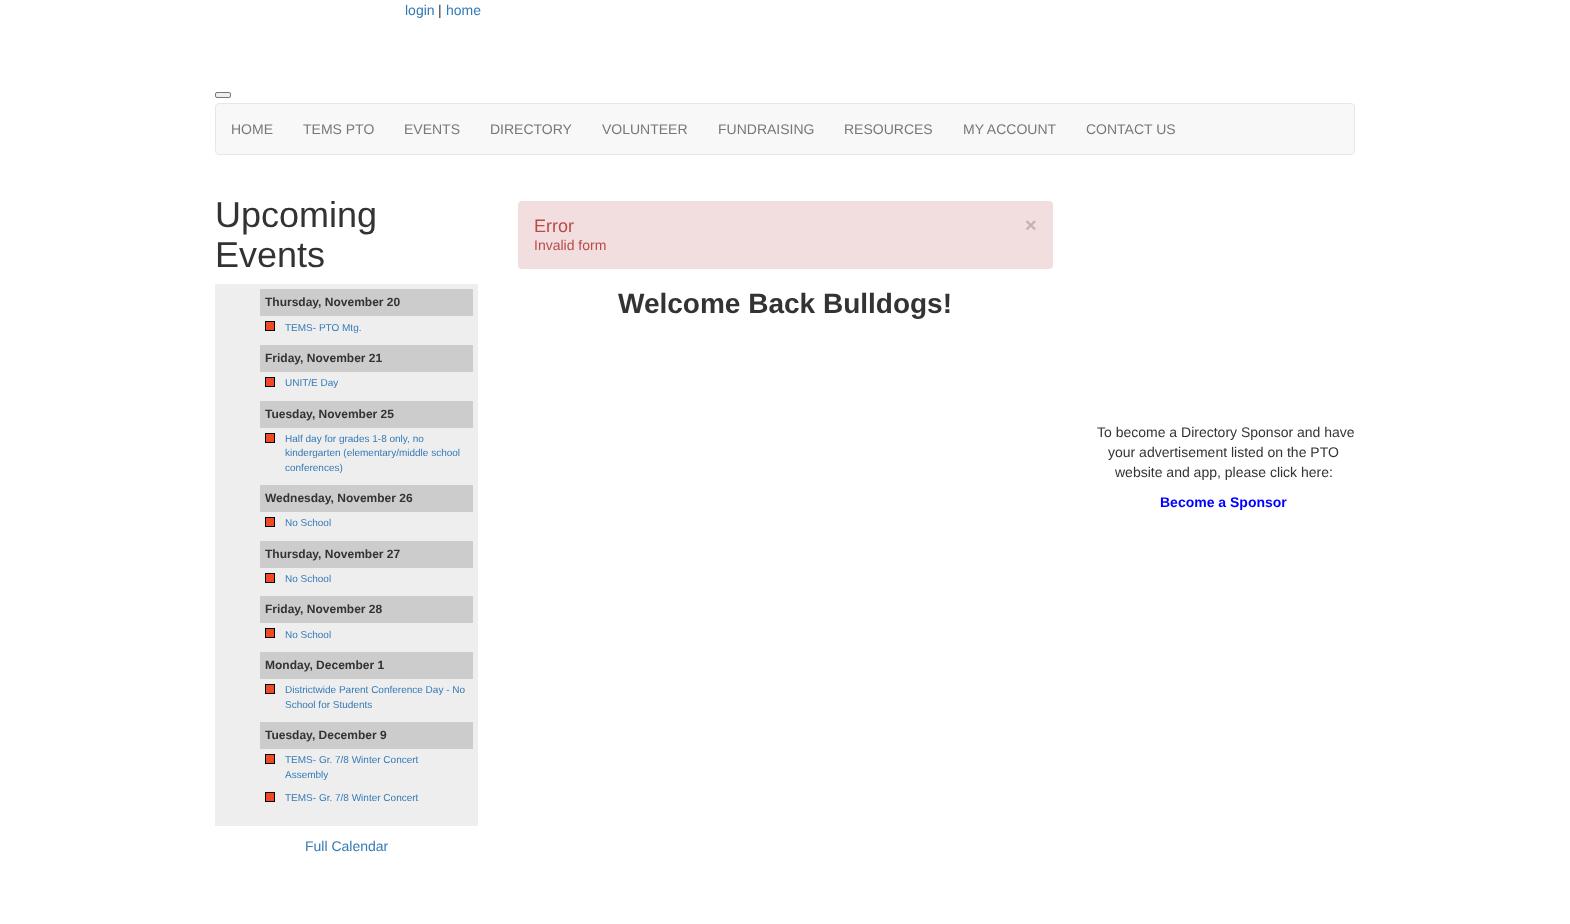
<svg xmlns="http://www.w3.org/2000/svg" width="1570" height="924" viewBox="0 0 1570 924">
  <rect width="100%" height="100%" fill="rgb(255,255,255)"/>
  <text x="405" y="15" font-family="Liberation Sans" font-size="14" fill="rgb(51,122,183)">login</text>
  <text x="438" y="15" font-family="Liberation Sans" font-size="14" fill="rgb(51,51,51)">|</text>
  <text x="446" y="15" font-family="Liberation Sans" font-size="14" fill="rgb(51,122,183)">home</text>
  <rect x="215.5" y="92.5" width="15" height="5" rx="1.5" fill="rgb(239,239,239)" stroke="rgb(118,118,118)"/>
  <rect x="215.5" y="103.5" width="1139" height="51" rx="3.5" fill="rgb(248,248,248)" stroke="rgb(231,231,231)"/>
  <g font-family="Liberation Sans" font-size="14" fill="rgb(119,119,119)">
    <text x="231" y="134">HOME</text>
    <text x="303" y="134">TEMS PTO</text>
    <text x="404" y="134">EVENTS</text>
    <text x="490" y="134">DIRECTORY</text>
    <text x="602" y="134">VOLUNTEER</text>
    <text x="718" y="134">FUNDRAISING</text>
    <text x="844" y="134">RESOURCES</text>
    <text x="963" y="134">MY ACCOUNT</text>
    <text x="1086" y="134">CONTACT US</text>
  </g>
  <g font-family="Liberation Sans" font-size="36" fill="rgb(51,51,51)">
    <text>
      <tspan x="215" y="227">Upcoming</tspan>
      <tspan x="215" y="267">Events</tspan>
    </text>
  </g>
  <rect x="215" y="284" width="263" height="542" fill="rgb(238,238,238)"/>
  <rect x="260" y="289" width="213" height="27" fill="rgb(204,204,204)"/>
  <text x="265" y="306" font-family="Liberation Sans" font-size="12" font-weight="bold" fill="rgb(51,51,51)">Thursday, November 20</text>
  <rect x="265.5" y="321.5" width="9" height="9" fill="rgb(239,73,37)" stroke="rgb(0,0,0)"/>
  <text x="285" y="331" font-family="Liberation Sans" font-size="10" fill="rgb(51,122,183)">TEMS- PTO Mtg.</text>
  <rect x="260" y="345" width="213" height="27" fill="rgb(204,204,204)"/>
  <text x="265" y="362" font-family="Liberation Sans" font-size="12" font-weight="bold" fill="rgb(51,51,51)">Friday, November 21</text>
  <rect x="265.5" y="377.5" width="9" height="9" fill="rgb(239,73,37)" stroke="rgb(0,0,0)"/>
  <text x="285" y="386" font-family="Liberation Sans" font-size="10" fill="rgb(51,122,183)">UNIT/E Day</text>
  <rect x="260" y="401" width="213" height="27" fill="rgb(204,204,204)"/>
  <text x="265" y="418" font-family="Liberation Sans" font-size="12" font-weight="bold" fill="rgb(51,51,51)">Tuesday, November 25</text>
  <rect x="265.5" y="433.5" width="9" height="9" fill="rgb(239,73,37)" stroke="rgb(0,0,0)"/>
  <g font-family="Liberation Sans" font-size="10" fill="rgb(51,122,183)">
    <text>
      <tspan x="285" y="442">Half day for grades 1-8 only, no</tspan>
      <tspan x="285" y="456">kindergarten (elementary/middle school</tspan>
      <tspan x="285" y="471">conferences)</tspan>
    </text>
  </g>
  <rect x="260" y="485" width="213" height="27" fill="rgb(204,204,204)"/>
  <text x="265" y="502" font-family="Liberation Sans" font-size="12" font-weight="bold" fill="rgb(51,51,51)">Wednesday, November 26</text>
  <rect x="265.5" y="517.5" width="9" height="9" fill="rgb(239,73,37)" stroke="rgb(0,0,0)"/>
  <text x="285" y="526" font-family="Liberation Sans" font-size="10" fill="rgb(51,122,183)">No School</text>
  <rect x="260" y="541" width="213" height="27" fill="rgb(204,204,204)"/>
  <text x="265" y="558" font-family="Liberation Sans" font-size="12" font-weight="bold" fill="rgb(51,51,51)">Thursday, November 27</text>
  <rect x="265.5" y="573.5" width="9" height="9" fill="rgb(239,73,37)" stroke="rgb(0,0,0)"/>
  <text x="285" y="582" font-family="Liberation Sans" font-size="10" fill="rgb(51,122,183)">No School</text>
  <rect x="260" y="596" width="213" height="27" fill="rgb(204,204,204)"/>
  <text x="265" y="613" font-family="Liberation Sans" font-size="12" font-weight="bold" fill="rgb(51,51,51)">Friday, November 28</text>
  <rect x="265.5" y="628.5" width="9" height="9" fill="rgb(239,73,37)" stroke="rgb(0,0,0)"/>
  <text x="285" y="638" font-family="Liberation Sans" font-size="10" fill="rgb(51,122,183)">No School</text>
  <rect x="260" y="652" width="213" height="27" fill="rgb(204,204,204)"/>
  <text x="265" y="669" font-family="Liberation Sans" font-size="12" font-weight="bold" fill="rgb(51,51,51)">Monday, December 1</text>
  <rect x="265.5" y="684.5" width="9" height="9" fill="rgb(239,73,37)" stroke="rgb(0,0,0)"/>
  <g font-family="Liberation Sans" font-size="10" fill="rgb(51,122,183)">
    <text>
      <tspan x="285" y="693">Districtwide Parent Conference Day - No</tspan>
      <tspan x="285" y="708">School for Students</tspan>
    </text>
  </g>
  <rect x="260" y="722" width="213" height="27" fill="rgb(204,204,204)"/>
  <text x="265" y="739" font-family="Liberation Sans" font-size="12" font-weight="bold" fill="rgb(51,51,51)">Tuesday, December 9</text>
  <rect x="265.5" y="754.5" width="9" height="9" fill="rgb(239,73,37)" stroke="rgb(0,0,0)"/>
  <g font-family="Liberation Sans" font-size="10" fill="rgb(51,122,183)">
    <text>
      <tspan x="285" y="763">TEMS- Gr. 7/8 Winter Concert</tspan>
      <tspan x="285" y="778">Assembly</tspan>
    </text>
  </g>
  <rect x="265.5" y="792.5" width="9" height="9" fill="rgb(239,73,37)" stroke="rgb(0,0,0)"/>
  <text x="285" y="801" font-family="Liberation Sans" font-size="10" fill="rgb(51,122,183)">TEMS- Gr. 7/8 Winter Concert</text>
  <text x="305" y="851" font-family="Liberation Sans" font-size="14" fill="rgb(51,122,183)">Full Calendar</text>
  <rect x="518" y="201" width="535" height="68" rx="4" fill="rgb(242,222,222)"/>
  <text x="534" y="232" font-family="Liberation Sans" font-size="18" fill="rgb(185,74,72)">Error</text>
  <text x="1025" y="232" font-family="Liberation Sans" font-size="20" font-weight="bold" fill="rgb(194,178,178)">×</text>
  <text x="534" y="250" font-family="Liberation Sans" font-size="14" fill="rgb(185,74,72)">Invalid form</text>
  <text x="618" y="313" font-family="Liberation Sans" font-size="28" font-weight="bold" fill="rgb(51,51,51)">Welcome Back Bulldogs!</text>
  <g font-family="Liberation Sans" font-size="14" fill="rgb(51,51,51)">
    <text x="1097" y="437">To become a Directory Sponsor and have</text>
    <text x="1108" y="457">your advertisement listed on the PTO</text>
    <text x="1115" y="477">website and app, please click here:</text>
  </g>
  <text x="1160" y="507" font-family="Liberation Sans" font-size="14" font-weight="bold" fill="rgb(0,0,255)">Become a Sponsor</text>
</svg>
